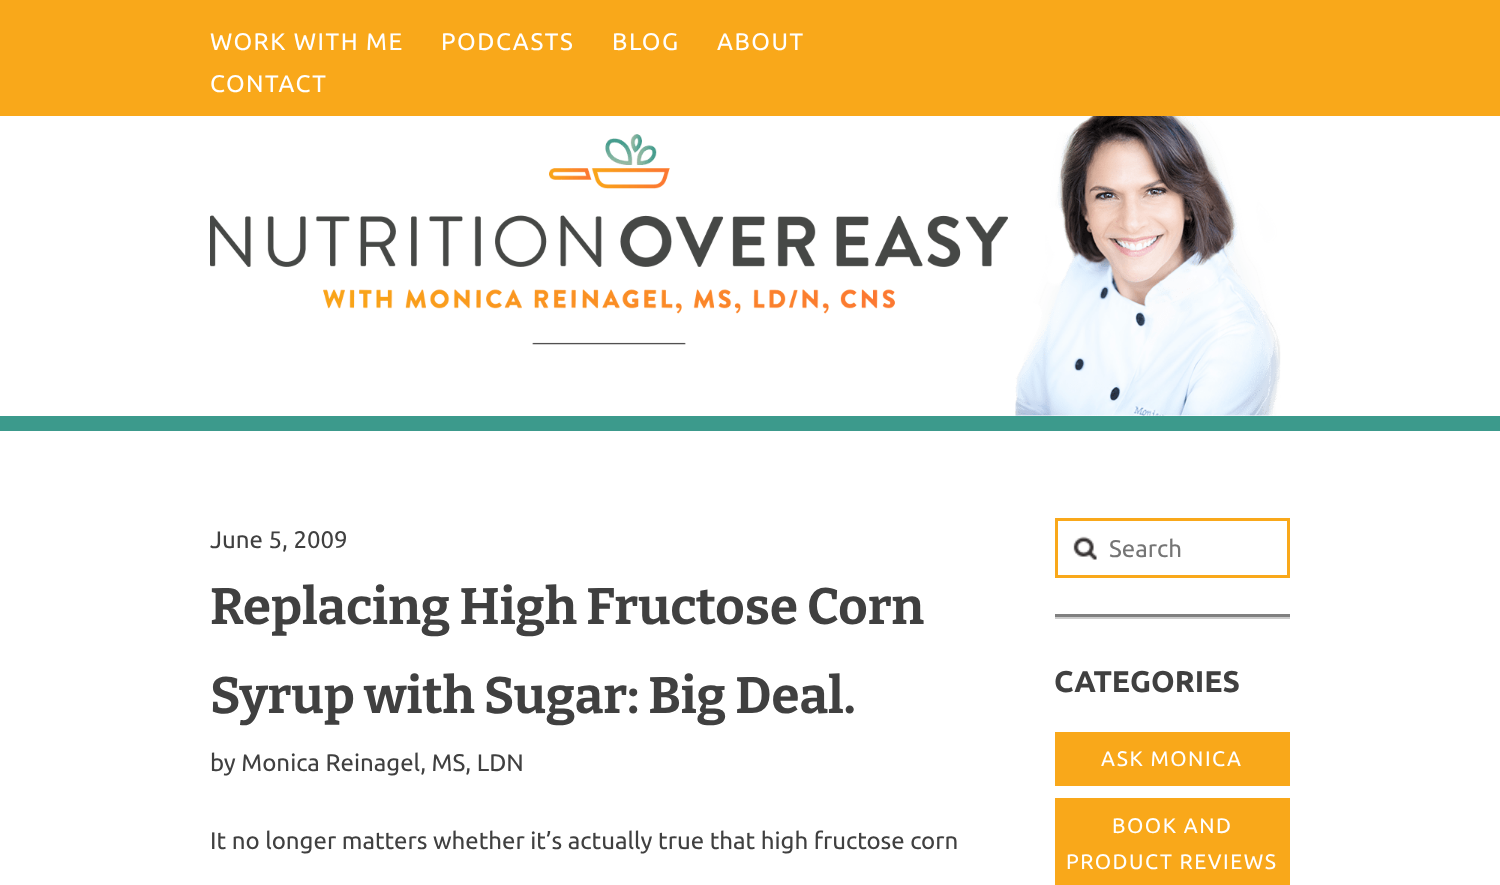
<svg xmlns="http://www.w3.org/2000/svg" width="1500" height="885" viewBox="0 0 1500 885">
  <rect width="100%" height="100%" fill="rgb(255,255,255)"/>
  <rect x="0" y="0" width="1500" height="116" fill="rgb(249,168,26)"/>
  <g font-family="Ubuntu" font-size="24" letter-spacing="1.5" fill="rgb(255,255,255)">
    <text x="210" y="50">WORK WITH ME</text>
    <text x="441" y="50">PODCASTS</text>
    <text x="612" y="50">BLOG</text>
    <text x="717" y="50">ABOUT</text>
    <text x="210" y="92">CONTACT</text>
  </g>
  <image x="210" y="116" width="1071" height="300" href="pic1.png"/>
  <rect x="0" y="416" width="1500" height="15" fill="rgb(60,154,140)"/>
  <text x="210" y="548" font-family="Ubuntu" font-size="24" fill="rgb(64,64,64)">June 5, 2009</text>
  <g font-family="Bitter" font-size="51" font-weight="bold" fill="rgb(64,64,64)">
    <text>
      <tspan x="210" y="624">Replacing High Fructose Corn</tspan>
      <tspan x="210" y="713">Syrup with Sugar: Big Deal.</tspan>
    </text>
  </g>
  <g font-family="Ubuntu" font-size="24" fill="rgb(64,64,64)">
    <text x="210" y="771">by Monica Reinagel, MS, LDN</text>
    <text x="210" y="849">It no longer matters whether it’s actually true that high fructose corn</text>
  </g>
  <rect x="1056.5" y="519.5" width="232" height="57" fill="none" stroke="rgb(249,168,26)" stroke-width="3"/>
  <image x="1073" y="536" width="24" height="24" href="pic2.png"/>
  <text x="1109" y="557" font-family="Ubuntu" font-size="24" fill="rgb(117,117,117)">Search</text>
  <rect x="1055" y="617" width="235" height="2" fill="rgb(204,204,204)"/>
  <rect x="1055" y="614" width="235" height="3" fill="rgb(128,128,128)"/>
  <text x="1054" y="692" font-family="Ubuntu" font-size="30" font-weight="bold" fill="rgb(64,64,64)">CATEGORIES</text>
  <rect x="1055" y="732" width="235" height="54" fill="rgb(249,168,26)"/>
  <text x="1101" y="766" font-family="Ubuntu" font-size="21" letter-spacing="1.5" fill="rgb(255,255,255)">ASK MONICA</text>
  <rect x="1055" y="798" width="235" height="87" fill="rgb(249,168,26)"/>
  <g font-family="Ubuntu" font-size="21" letter-spacing="1.5" fill="rgb(255,255,255)">
    <text x="1112" y="833">BOOK AND</text>
    <text x="1066" y="869">PRODUCT REVIEWS</text>
  </g>
</svg>
